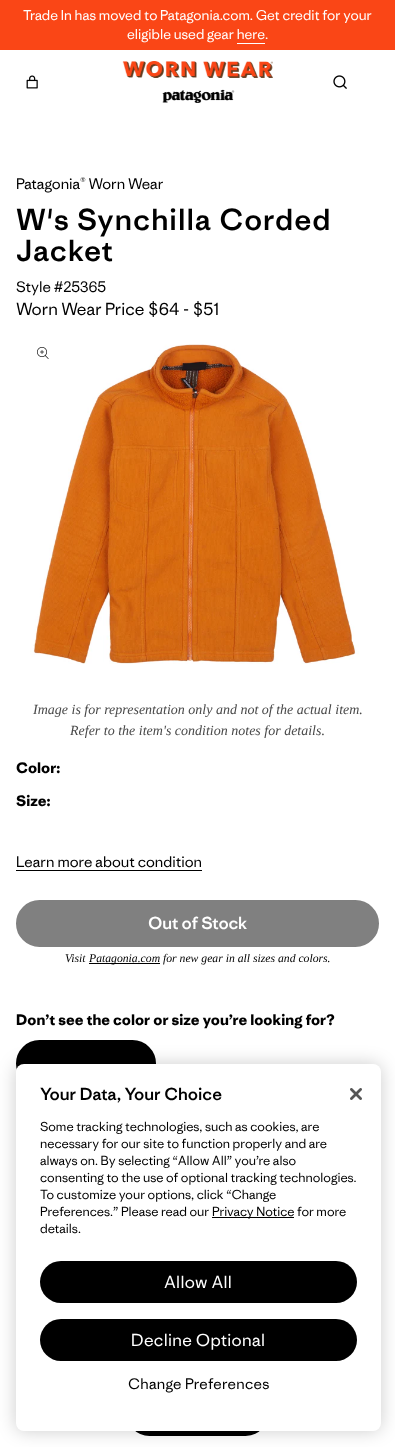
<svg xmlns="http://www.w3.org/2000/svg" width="395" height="1447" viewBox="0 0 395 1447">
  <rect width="100%" height="100%" fill="rgb(255,255,255)"/>
  <rect x="0" y="0" width="395" height="50" fill="rgb(250,70,22)"/>
  <g font-family="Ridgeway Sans" font-size="13" fill="rgb(255,255,255)">
    <text x="23" y="20">Trade In has moved to Patagonia.com. Get credit for your</text>
    <text x="127" y="39">eligible used gear here</text>
    <text x="265" y="39">.</text>
  </g>
  <rect x="237" y="43" width="28" height="1" fill="rgb(255,255,255)"/>
  <image x="122" y="61" width="151" height="42" href="pic1.png"/>
  <image x="26" y="75" width="12" height="14" href="pic2.png"/>
  <image x="333" y="75" width="14" height="14" href="pic3.png"/>
  <text x="16" y="189" font-family="Ridgeway Sans" font-size="14" fill="rgb(0,0,0)">Patagonia® Worn Wear</text>
  <g font-family="Ridgeway Sans" font-size="28" font-weight="500" letter-spacing="1" fill="rgb(0,0,0)">
    <text>
      <tspan x="16" y="230">W's Synchilla Corded</tspan>
      <tspan x="16" y="261">Jacket</tspan>
    </text>
  </g>
  <text x="16" y="292" font-family="Ridgeway Sans" font-size="14" fill="rgb(0,0,0)">Style #25365</text>
  <text x="16" y="315" font-family="Ridgeway Sans" font-size="16" fill="rgb(0,0,0)">Worn Wear Price $64 - $51</text>
  <image x="30" y="344" width="329" height="320" href="pic4.png"/>
  <image x="37" y="347" width="12" height="12" href="pic5.png"/>
  <g font-family="Liberation Serif" font-size="14" font-style="italic" fill="rgb(73,73,73)">
    <text x="33" y="714">Image is for representation only and not of the actual item.</text>
    <text x="70" y="735">Refer to the item's condition notes for details.</text>
  </g>
  <g font-family="Ridgeway Sans" font-size="14" font-weight="bold" fill="rgb(0,0,0)">
    <text x="16" y="773">Color:</text>
    <text x="16" y="806">Size:</text>
  </g>
  <text x="16" y="867" font-family="Ridgeway Sans" font-size="14" fill="rgb(0,0,0)">Learn more about condition</text>
  <rect x="16" y="870" width="186" height="1" fill="rgb(0,0,0)"/>
  <rect x="18" y="902" width="359" height="43" rx="21.5" fill="rgb(128,128,128)" stroke="rgb(128,128,128)" stroke-width="4"/>
  <text x="148" y="929" font-family="Ridgeway Sans" font-size="16" font-weight="500" letter-spacing="-0.25" fill="rgb(255,255,255)">Out of Stock</text>
  <text x="65" y="962" font-family="Liberation Serif" font-size="11.7" font-style="italic" fill="rgb(0,0,0)">Visit</text>
  <rect x="89" y="963" width="71" height="1" fill="rgb(0,0,0)"/>
  <text x="89" y="962" font-family="Liberation Serif" font-size="11.7" font-style="italic" fill="rgb(0,0,0)">Patagonia.com for new gear in all sizes and colors.</text>
  <text x="16" y="1025" font-family="Ridgeway Sans" font-size="14" font-weight="bold" fill="rgb(0,0,0)">Don’t see the color or size you’re looking for?</text>
  <rect x="18" y="1042" width="136" height="43" rx="21.5" fill="rgb(0,0,0)" stroke="rgb(0,0,0)" stroke-width="4"/>
  <rect x="128" y="1391" width="139" height="43" rx="21.5" fill="rgb(0,0,0)" stroke="rgb(0,0,0)" stroke-width="4"/>
  <rect x="16" y="1064" width="365" height="367" rx="8" fill="rgba(0,0,0,0.2)" filter="blur(9px)"/>
  <rect x="16" y="1064" width="365" height="367" rx="8" fill="rgb(255,255,255)"/>
  <text x="40" y="1100" font-family="Ridgeway Sans" font-size="16" font-weight="500" fill="rgb(0,0,0)">Your Data, Your Choice</text>
  <g font-family="Ridgeway Sans" font-size="12" fill="rgb(0,0,0)">
    <text>
      <tspan x="40" y="1131">Some tracking technologies, such as cookies, are</tspan>
      <tspan x="40" y="1148">necessary for our site to function properly and are</tspan>
      <tspan x="40" y="1165">always on. By selecting “Allow All” you’re also</tspan>
      <tspan x="40" y="1182">consenting to the use of optional tracking technologies.</tspan>
      <tspan x="40" y="1199">To customize your options, click “Change</tspan>
      <tspan x="40" y="1216">Preferences.” Please read our</tspan>
    </text>
  </g>
  <rect x="212" y="1217" width="82" height="1" fill="rgb(0,0,0)"/>
  <g font-family="Ridgeway Sans" font-size="12" fill="rgb(0,0,0)">
    <text x="212" y="1216">Privacy Notice for more</text>
    <text x="40" y="1233">details.</text>
  </g>
  <image x="350" y="1088" width="12" height="12" href="pic6.png"/>
  <rect x="40" y="1261" width="317" height="42" rx="21" fill="rgb(0,0,0)"/>
  <text x="164" y="1288" font-family="Ridgeway Sans" font-size="16" letter-spacing="0.3" fill="rgb(255,255,255)">Allow All</text>
  <rect x="40" y="1319" width="317" height="42" rx="21" fill="rgb(0,0,0)"/>
  <text x="131" y="1346" font-family="Ridgeway Sans" font-size="16" letter-spacing="0.3" fill="rgb(255,255,255)">Decline Optional</text>
  <text x="128" y="1389" font-family="Ridgeway Sans" font-size="14" letter-spacing="0.25" fill="rgb(0,0,0)">Change Preferences</text>
</svg>
